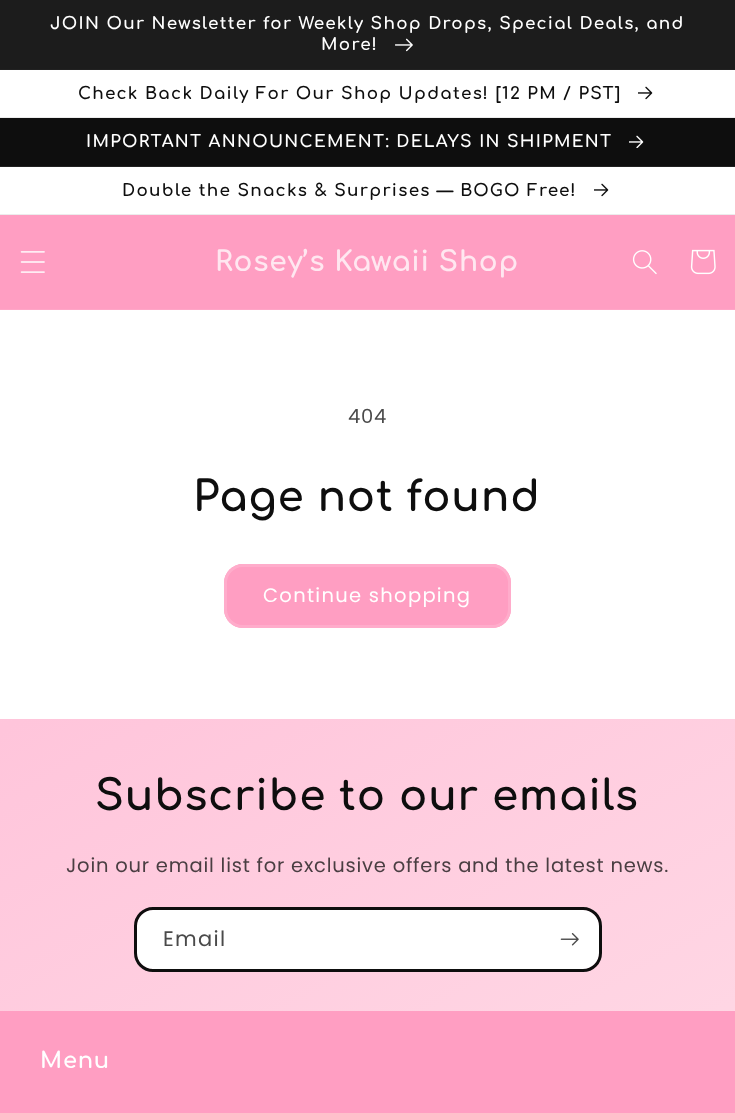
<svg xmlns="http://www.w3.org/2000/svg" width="735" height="1113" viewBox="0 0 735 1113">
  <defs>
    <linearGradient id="g1" gradientUnits="userSpaceOnUse" x1="690" y1="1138" x2="45" y2="-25"><stop offset="0.02" stop-color="rgb(255,216,229)"/><stop offset="0.52" stop-color="rgb(255,197,219)"/><stop offset="0.66" stop-color="rgb(255,203,222)"/><stop offset="0.86" stop-color="rgb(255,216,230)"/><stop offset="1" stop-color="rgb(255,204,222)"/></linearGradient>
  </defs>
  <rect width="100%" height="100%" fill="rgb(255,255,255)"/>
  <rect x="0" y="69" width="735" height="1" fill="rgb(33,33,33)"/>
  <rect x="0" y="0" width="735" height="69" fill="rgb(28,28,28)"/>
  <g font-family="Comfortaa" font-size="16.8" font-weight="bold" letter-spacing="1.3" fill="rgb(255,255,255)">
    <text x="50" y="29">JOIN Our Newsletter for Weekly Shop Drops, Special Deals, and</text>
    <text x="321" y="50">More!</text>
  </g>
  <image x="395" y="38" width="18" height="14" href="pic1.png"/>
  <rect x="0" y="117" width="735" height="1" fill="rgb(236,236,236)"/>
  <text x="78" y="99" font-family="Comfortaa" font-size="16.8" font-weight="bold" letter-spacing="1.3" fill="rgb(14,14,14)">Check Back Daily For Our Shop Updates! [12 PM / PST]</text>
  <image x="638" y="86" width="15" height="14" href="pic2.png"/>
  <rect x="0" y="118" width="735" height="48" fill="rgb(14,14,14)"/>
  <rect x="0" y="166" width="735" height="1" fill="rgb(33,33,33)"/>
  <text x="86" y="147" font-family="Comfortaa" font-size="16.8" font-weight="bold" letter-spacing="1.3" fill="rgb(255,255,255)">IMPORTANT ANNOUNCEMENT: DELAYS IN SHIPMENT</text>
  <image x="629" y="135" width="15" height="13" href="pic3.png"/>
  <rect x="0" y="214" width="735" height="1" fill="rgb(236,236,236)"/>
  <text x="122" y="196" font-family="Comfortaa" font-size="16.8" font-weight="bold" letter-spacing="1.3" fill="rgb(14,14,14)">Double the Snacks &amp; Surprises — BOGO Free!</text>
  <image x="594" y="183" width="15" height="14" href="pic2.png"/>
  <rect x="0" y="215" width="735" height="94" fill="rgb(255,158,194)"/>
  <rect x="0" y="309" width="735" height="1" fill="rgb(255,166,199)"/>
  <image x="20" y="251" width="25" height="22" href="pic4.png"/>
  <text x="215" y="271" font-family="Comfortaa" font-size="28" font-weight="bold" letter-spacing="0.8" fill="rgb(255,231,240)">Rosey’s Kawaii Shop</text>
  <image x="632" y="250" width="25" height="25" href="pic5.png"/>
  <image x="690" y="249" width="26" height="26" href="pic6.png"/>
  <text x="348" y="423" font-family="Poppins" font-size="19.5" letter-spacing="0.78" fill="rgb(74,74,74)">404</text>
  <text x="193" y="511" font-family="Comfortaa" font-size="42" font-weight="bold" letter-spacing="0.8" fill="rgb(14,14,14)">Page not found</text>
  <rect x="224" y="564" width="287" height="64" rx="19" fill="rgb(255,158,194)"/>
  <rect x="225.5" y="565.5" width="284" height="61" rx="17.5" fill="none" stroke="rgb(255,158,194)" stroke-width="3"/>
  <rect x="225.5" y="565.5" width="284" height="61" rx="17.5" fill="none" stroke="rgba(255,255,255,0.15)" stroke-width="3"/>
  <text x="263" y="602" font-family="Poppins" font-size="19.5" letter-spacing="1.3" fill="rgb(255,255,255)">Continue shopping</text>
  <rect x="0" y="719" width="735" height="292" fill="url(#g1)"/>
  <text x="95" y="810" font-family="Comfortaa" font-size="42" font-weight="bold" letter-spacing="0.8" fill="rgb(14,14,14)">Subscribe to our emails</text>
  <text x="66" y="872" font-family="Poppins" font-size="19.5" letter-spacing="0.78" fill="rgb(74,62,66)">Join our email list for exclusive offers and the latest news.</text>
  <rect x="137" y="910" width="462" height="59" rx="16" fill="rgb(255,255,255)"/>
  <rect x="135.5" y="908.5" width="465" height="62" rx="17.5" fill="none" stroke="rgb(14,14,14)" stroke-width="3"/>
  <text x="163" y="946" font-family="Poppins" font-size="21" letter-spacing="1.3" fill="rgb(74,74,74)">Email</text>
  <image x="560" y="933" width="19" height="13" href="pic7.png"/>
  <rect x="0" y="1011" width="735" height="102" fill="rgb(255,158,194)"/>
  <text x="40" y="1068" font-family="Comfortaa" font-size="22.5" font-weight="bold" letter-spacing="0.8" fill="rgb(255,255,255)">Menu</text>
</svg>
